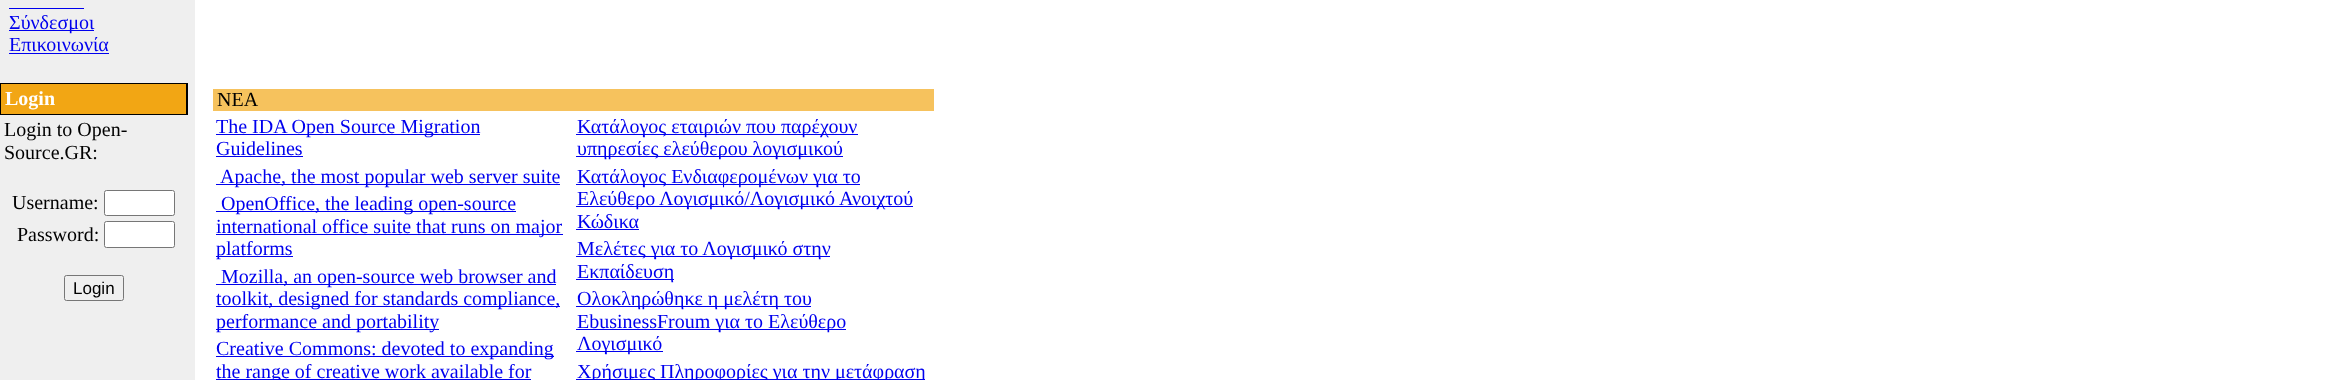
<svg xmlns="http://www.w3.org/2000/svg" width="2347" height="380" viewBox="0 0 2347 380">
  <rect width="100%" height="100%" fill="rgb(255,255,255)"/>
  <rect x="0" y="0" width="195" height="380" fill="rgb(239,239,239)"/>
  <rect x="9" y="8" width="75" height="1" fill="rgb(0,0,238)"/>
  <rect x="9" y="30" width="85" height="1" fill="rgb(0,0,238)"/>
  <g font-family="Liberation Serif" font-size="20" fill="rgb(0,0,238)">
    <text>
      <tspan x="9" y="29">Σύνδεσμοι</tspan>
      <tspan x="9" y="51">Επικοινωνία</tspan>
    </text>
  </g>
  <rect x="9" y="53" width="100" height="1" fill="rgb(0,0,238)"/>
  <rect x="0" y="83" width="188" height="32" fill="rgb(0,0,0)"/>
  <rect x="1" y="84" width="185" height="30" fill="rgb(242,166,20)"/>
  <text x="5" y="105" font-family="Liberation Serif" font-size="20" font-weight="bold" fill="rgb(255,255,255)">Login</text>
  <g font-family="Liberation Serif" font-size="20" fill="rgb(0,0,0)">
    <text>
      <tspan x="4" y="136">Login to Open-</tspan>
      <tspan x="4" y="159">Source.GR:</tspan>
    </text>
    <text x="12" y="209">Username:</text>
  </g>
  <rect x="104.5" y="190.5" width="70" height="25" rx="2" fill="rgb(255,255,255)" stroke="rgb(118,118,118)"/>
  <text x="17" y="241" font-family="Liberation Serif" font-size="20" fill="rgb(0,0,0)">Password:</text>
  <rect x="104.5" y="221.5" width="70" height="26" rx="2" fill="rgb(255,255,255)" stroke="rgb(118,118,118)"/>
  <rect x="64.5" y="275.5" width="59" height="25" rx="2" fill="none" stroke="rgb(118,118,118)"/>
  <text x="73" y="294" font-family="Liberation Sans" font-size="17" fill="rgb(0,0,0)">Login</text>
  <rect x="213" y="89" width="721" height="22" fill="rgb(246,194,93)"/>
  <text x="217" y="106" font-family="Liberation Serif" font-size="20" fill="rgb(0,0,0)">ΝΕΑ</text>
  <rect x="216" y="134" width="264" height="1" fill="rgb(0,0,238)"/>
  <g font-family="Liberation Serif" font-size="20" fill="rgb(0,0,238)">
    <text>
      <tspan x="216" y="133">The IDA Open Source Migration</tspan>
      <tspan x="216" y="155">Guidelines</tspan>
    </text>
  </g>
  <rect x="216" y="156" width="87" height="1" fill="rgb(0,0,238)"/>
  <rect x="216" y="184" width="344" height="1" fill="rgb(0,0,238)"/>
  <text x="220" y="183" font-family="Liberation Serif" font-size="20" fill="rgb(0,0,238)">Apache, the most popular web server suite</text>
  <rect x="216" y="211" width="300" height="1" fill="rgb(0,0,238)"/>
  <text x="221" y="210" font-family="Liberation Serif" font-size="20" fill="rgb(0,0,238)">OpenOffice, the leading open-source</text>
  <rect x="216" y="234" width="347" height="1" fill="rgb(0,0,238)"/>
  <text x="216" y="233" font-family="Liberation Serif" font-size="20" fill="rgb(0,0,238)">international office suite that runs on major</text>
  <rect x="216" y="256" width="77" height="1" fill="rgb(0,0,238)"/>
  <text x="216" y="255" font-family="Liberation Serif" font-size="20" fill="rgb(0,0,238)">platforms</text>
  <rect x="216" y="284" width="340" height="1" fill="rgb(0,0,238)"/>
  <text x="221" y="283" font-family="Liberation Serif" font-size="20" fill="rgb(0,0,238)">Mozilla, an open-source web browser and</text>
  <rect x="216" y="306" width="344" height="1" fill="rgb(0,0,238)"/>
  <text x="216" y="305" font-family="Liberation Serif" font-size="20" fill="rgb(0,0,238)">toolkit, designed for standards compliance,</text>
  <rect x="216" y="329" width="223" height="1" fill="rgb(0,0,238)"/>
  <text x="216" y="328" font-family="Liberation Serif" font-size="20" fill="rgb(0,0,238)">performance and portability</text>
  <rect x="216" y="356" width="338" height="1" fill="rgb(0,0,238)"/>
  <text x="216" y="355" font-family="Liberation Serif" font-size="20" fill="rgb(0,0,238)">Creative Commons: devoted to expanding</text>
  <rect x="216" y="379" width="315" height="1" fill="rgb(0,0,238)"/>
  <text x="216" y="378" font-family="Liberation Serif" font-size="20" fill="rgb(0,0,238)">the range of creative work available for</text>
  <rect x="576" y="134" width="282" height="1" fill="rgb(0,0,238)"/>
  <text x="577" y="133" font-family="Liberation Serif" font-size="20" fill="rgb(0,0,238)">Κατάλογος εταιριών που παρέχουν</text>
  <rect x="576" y="156" width="267" height="1" fill="rgb(0,0,238)"/>
  <text x="577" y="155" font-family="Liberation Serif" font-size="20" fill="rgb(0,0,238)">υπηρεσίες ελεύθερου λογισμικού</text>
  <rect x="576" y="184" width="284" height="1" fill="rgb(0,0,238)"/>
  <text x="577" y="183" font-family="Liberation Serif" font-size="20" fill="rgb(0,0,238)">Κατάλογος Ενδιαφερομένων για το</text>
  <rect x="576" y="206" width="337" height="1" fill="rgb(0,0,238)"/>
  <g font-family="Liberation Serif" font-size="20" fill="rgb(0,0,238)">
    <text>
      <tspan x="577" y="205">Ελεύθερο Λογισμικό/Λογισμικό Ανοιχτού</tspan>
      <tspan x="577" y="228">Κώδικα</tspan>
    </text>
  </g>
  <rect x="576" y="229" width="63" height="1" fill="rgb(0,0,238)"/>
  <rect x="576" y="256" width="254" height="1" fill="rgb(0,0,238)"/>
  <text x="577" y="255" font-family="Liberation Serif" font-size="20" fill="rgb(0,0,238)">Μελέτες για το Λογισμικό στην</text>
  <rect x="576" y="279" width="98" height="1" fill="rgb(0,0,238)"/>
  <text x="577" y="278" font-family="Liberation Serif" font-size="20" fill="rgb(0,0,238)">Εκπαίδευση</text>
  <rect x="576" y="306" width="235" height="1" fill="rgb(0,0,238)"/>
  <text x="577" y="305" font-family="Liberation Serif" font-size="20" fill="rgb(0,0,238)">Ολοκληρώθηκε η μελέτη του</text>
  <rect x="576" y="329" width="270" height="1" fill="rgb(0,0,238)"/>
  <text x="577" y="328" font-family="Liberation Serif" font-size="20" fill="rgb(0,0,238)">EbusinessFroum για το Ελεύθερο</text>
  <rect x="576" y="351" width="87" height="1" fill="rgb(0,0,238)"/>
  <text x="577" y="350" font-family="Liberation Serif" font-size="20" fill="rgb(0,0,238)">Λογισμικό</text>
  <rect x="576" y="379" width="349" height="1" fill="rgb(0,0,238)"/>
  <text x="577" y="378" font-family="Liberation Serif" font-size="20" fill="rgb(0,0,238)">Χρήσιμες Πληροφορίες για την μετάφραση</text>
</svg>
